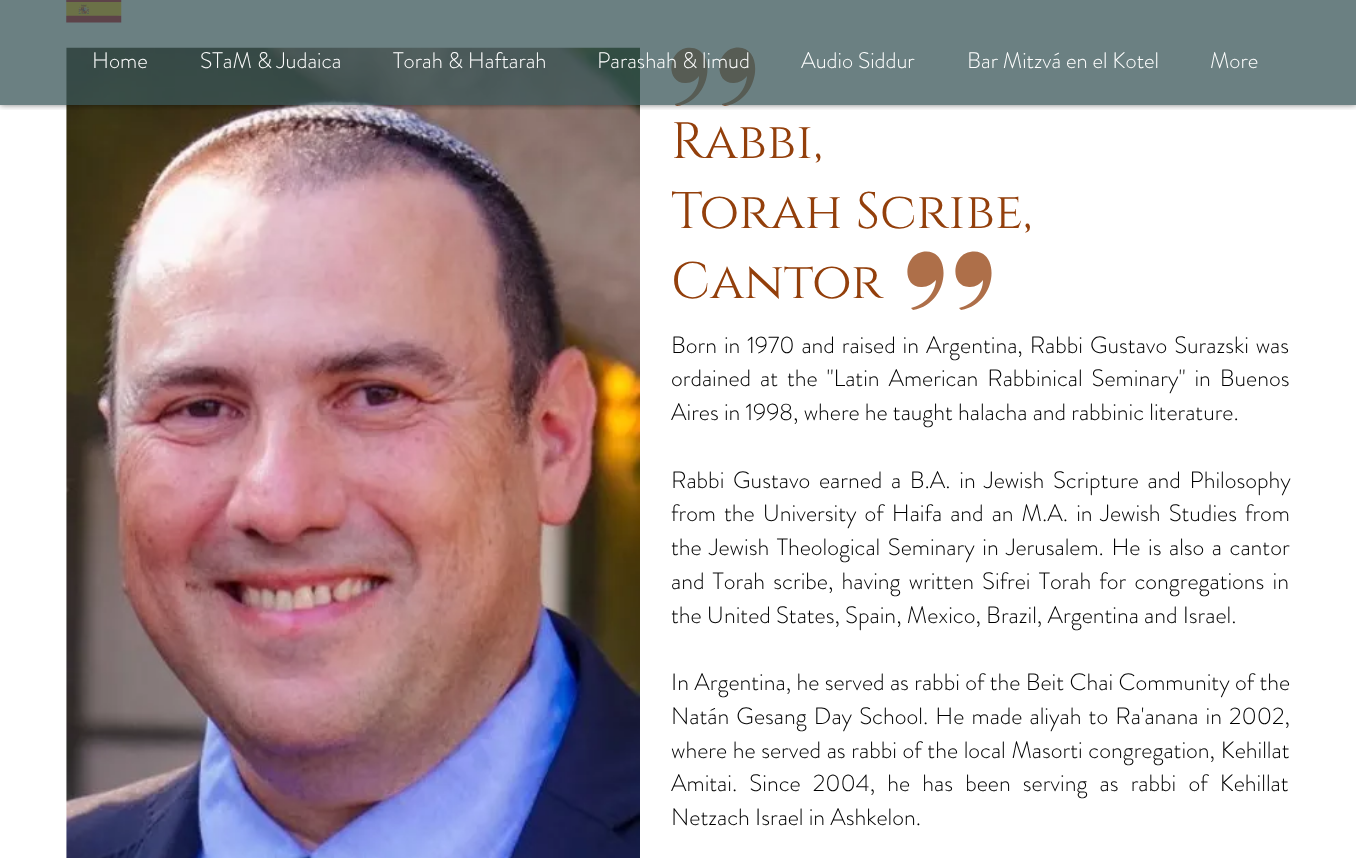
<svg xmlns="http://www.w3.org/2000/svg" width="1356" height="858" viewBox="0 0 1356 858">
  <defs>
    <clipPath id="clip1"><rect x="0" y="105" width="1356" height="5"/></clipPath>
  </defs>
  <rect width="100%" height="100%" fill="rgb(255,255,255)"/>
  <image x="66" y="0" width="56" height="23" href="pic1.png"/>
  <image x="66" y="47" width="574" height="811" href="pic2.png"/>
  <path d="M675 105V104C688 101 699 90 699 76C696 80 692 83 686 83C666 84 667 52 686 48C717 43 715 100 677 106Z" fill="rgb(174,111,73)"/>
  <path d="M722 105V104C736 101 746 90 747 76C744 80 739 83 734 83C714 84 715 52 734 48C765 42 762 100 725 106Z" fill="rgb(174,111,73)"/>
  <g clip-path="url(#clip1)">
    <rect x="0" y="0" width="1356" height="105" fill="rgba(0,0,0,0.5)" filter="blur(3px)"/>
  </g>
  <rect x="0" y="0" width="1356" height="105" fill="rgba(58,86,88,0.75)"/>
  <g font-family="'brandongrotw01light'" font-size="22.5" font-weight="300" fill="rgb(255,255,255)">
    <text x="92" y="68">Home</text>
    <text x="200" y="68">STaM &amp; Judaica</text>
    <text x="393" y="68">Torah &amp; Haftarah</text>
    <text x="597" y="68">Parashah &amp; limud</text>
    <text x="801" y="68">Audio Siddur</text>
    <text x="967" y="68">Bar Mitzvá en el Kotel</text>
    <text x="1210" y="68">More</text>
  </g>
  <g font-family="Cinzel" font-size="51.25" fill="rgb(147,63,11)">
    <text>
      <tspan x="671" y="158">Rabbi,</tspan>
      <tspan x="671" y="228">Torah Scribe,</tspan>
      <tspan x="671" y="298">Cantor</tspan>
    </text>
  </g>
  <path d="M911 308C924 305 935 294 936 280C932 284 928 287 922 287C902 288 903 256 922 252C953 246 951 304 913 310Z" fill="rgb(174,111,73)"/>
  <path d="M959 308C972 305 983 294 983 280C980 284 976 287 970 287C950 288 951 255 970 252C1001 246 999 304 961 310Z" fill="rgb(174,111,73)"/>
  <g font-family="'brandongrotw01light'" font-size="23.75" font-weight="300" fill="rgb(0,0,0)">
    <text>
      <tspan x="671" y="353" word-spacing="1.75">Born in 1970 and raised in Argentina, Rabbi Gustavo Surazski was</tspan>
      <tspan x="671" y="386" word-spacing="3.75">ordained at the "Latin American Rabbinical Seminary" in Buenos</tspan>
      <tspan x="671" y="420">Aires in 1998, where he taught halacha and rabbinic literature.</tspan>
    </text>
    <text>
      <tspan x="671" y="488" word-spacing="3.5">Rabbi Gustavo earned a B.A. in Jewish Scripture and Philosophy</tspan>
      <tspan x="671" y="521" word-spacing="2.9">from the University of Haifa and an M.A. in Jewish Studies from</tspan>
      <tspan x="671" y="555" word-spacing="2.4">the Jewish Theological Seminary in Jerusalem. He is also a cantor</tspan>
      <tspan x="671" y="589" word-spacing="3">and Torah scribe, having written Sifrei Torah for congregations in</tspan>
      <tspan x="671" y="623">the United States, Spain, Mexico, Brazil, Argentina and Israel.</tspan>
    </text>
    <text>
      <tspan x="671" y="690" word-spacing="0.2">In Argentina, he served as rabbi of the Beit Chai Community of the</tspan>
      <tspan x="671" y="724" word-spacing="2">Natán Gesang Day School. He made aliyah to Ra'anana in 2002,</tspan>
      <tspan x="671" y="758" word-spacing="0.5">where he served as rabbi of the local Masorti congregation, Kehillat</tspan>
      <tspan x="671" y="791" word-spacing="7">Amitai. Since 2004, he has been serving as rabbi of Kehillat</tspan>
      <tspan x="671" y="825">Netzach Israel in Ashkelon.</tspan>
    </text>
  </g>
</svg>
